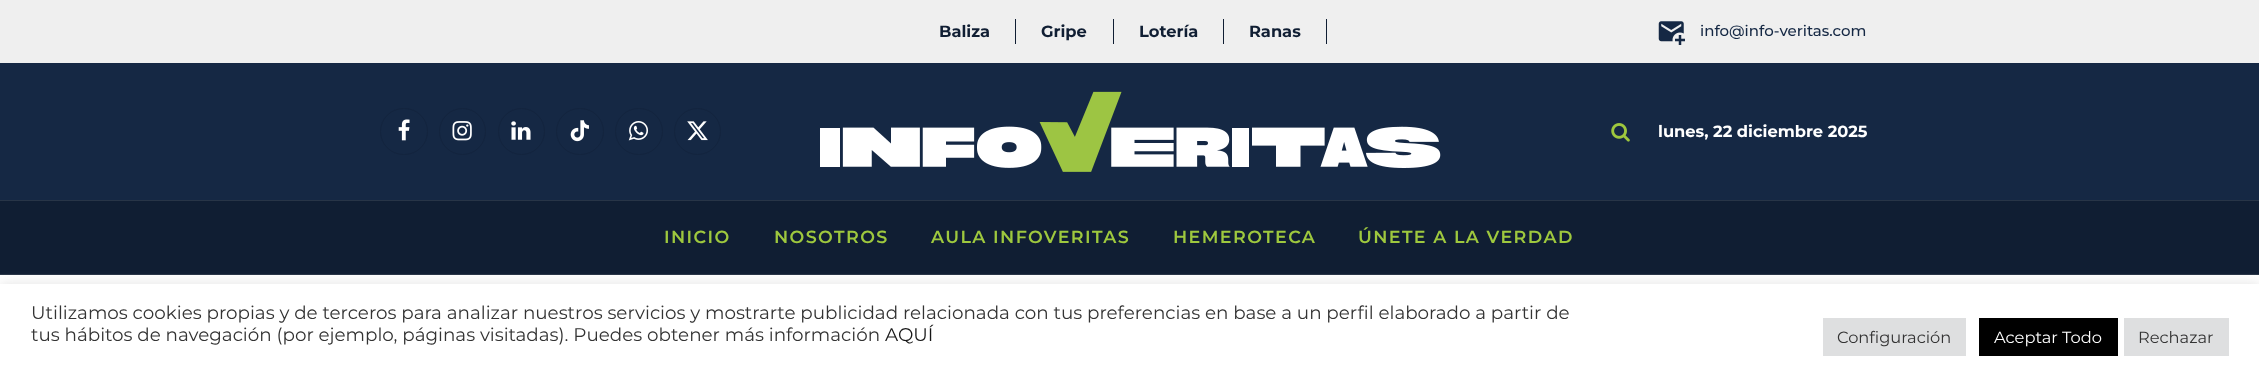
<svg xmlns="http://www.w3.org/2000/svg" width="2259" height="390">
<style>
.a{font:bold 16.25px Montserrat;fill:#101e33}
.b{font:500 15px Montserrat;fill:#152844}
.c{font:bold 16.25px Montserrat;fill:#fff}
.d{font:600 17.5px Montserrat;letter-spacing:1.4px;fill:#9ec83e}
.e{font:18.33px Montserrat;fill:#333}
.f{font:18.33px Montserrat;fill:#161616}
.g{font:16.25px Montserrat;fill:#333}
.h{font:16.25px Montserrat;fill:#fff}
</style>
<rect width="100%" height="100%" fill="#fff"/>
<path fill="#efefef" d="M0 0h2259v63H0z"/>
<path fill="#101e33" d="M1015 19h1v25H1015z"/>
<path fill="#101e33" d="M1113 19h1v25H1113z"/>
<path fill="#101e33" d="M1223 19h1v25H1223z"/>
<path fill="#101e33" d="M1326 19h1v25H1326z"/>
<image href="1.png" x="1658" y="21" width="27" height="24"/>
<path fill="#152844" d="M0 63h2259v137H0z"/>
<rect fill="none" stroke="#13243e" x="380.5" y="108.5" width="47" height="46" rx="23"/>
<image href="2.png" x="398" y="119" width="12" height="22"/>
<circle fill="none" stroke="#13243e" cx="462.5" cy="131.5" r="23"/>
<image href="3.png" x="452" y="121" width="20" height="20"/>
<circle fill="none" stroke="#13243e" cx="521.5" cy="131.5" r="23"/>
<image href="4.png" x="511" y="121" width="20" height="19"/>
<rect fill="none" stroke="#13243e" x="556.5" y="108.5" width="47" height="46" rx="23"/>
<image href="5.png" x="570" y="120" width="19" height="22"/>
<rect fill="none" stroke="#13243e" x="615.5" y="108.5" width="47" height="46" rx="23"/>
<image href="6.png" x="628" y="121" width="20" height="20"/>
<circle fill="none" stroke="#13243e" cx="697.5" cy="131.5" r="23"/>
<image href="7.png" x="687" y="121" width="21" height="20"/>
<image href="8.png" x="820" y="91" width="621" height="81"/>
<image href="9.png" x="1611" y="123" width="19" height="19"/>
<path fill="#101e33" d="M0 201h2259v73H0z"/>
<path fill="#283547" d="M0 200h2259v1H0z"/>
<path fill="#283547" d="M0 274h2259v1H0z"/>
<path fill="#acabab4d" filter="blur(6px)" d="M0 283h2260v106H0z"/>
<path fill="#fff" d="M0 284h2259v106H0z"/>
<path fill="#dedfe0" d="M1823 318h143v38H1823z"/>
<path fill="#000" d="M1979 318h139v38H1979z"/>
<path fill="#dedfe0" d="M2124 318h105v38H2124z"/>
<text class="a" x="939" y="37">Baliza</text>
<text class="a" x="1041" y="37">Gripe</text>
<text class="a" x="1139" y="37">Lotería</text>
<text class="a" x="1249" y="37">Ranas</text>
<text class="b" x="1700" y="36">info@info-veritas.com</text>
<text class="c" x="1658" y="137">lunes, 22 diciembre 2025</text>
<text class="d" x="664" y="243">INICIO</text>
<text class="d" x="774" y="243">NOSOTROS</text>
<text class="d" x="931" y="243">AULA INFOVERITAS</text>
<text class="d" x="1173" y="243">HEMEROTECA</text>
<text class="d" x="1358" y="243">ÚNETE A LA VERDAD</text>
<text class="e" x="31" y="319">Utilizamos cookies propias y de terceros para analizar nuestros servicios y mostrarte publicidad relacionada con tus preferencias en base a un perfil elaborado a partir de</text>
<text class="e" x="31" y="341">tus hábitos de navegación (por ejemplo, páginas visitadas). Puedes obtener más información</text>
<text class="f" x="885" y="341">AQUÍ</text>
<text class="g" x="1837" y="343">Configuración</text>
<text class="h" x="1994" y="343">Aceptar Todo</text>
<text class="g" x="2138" y="343">Rechazar</text>
</svg>
